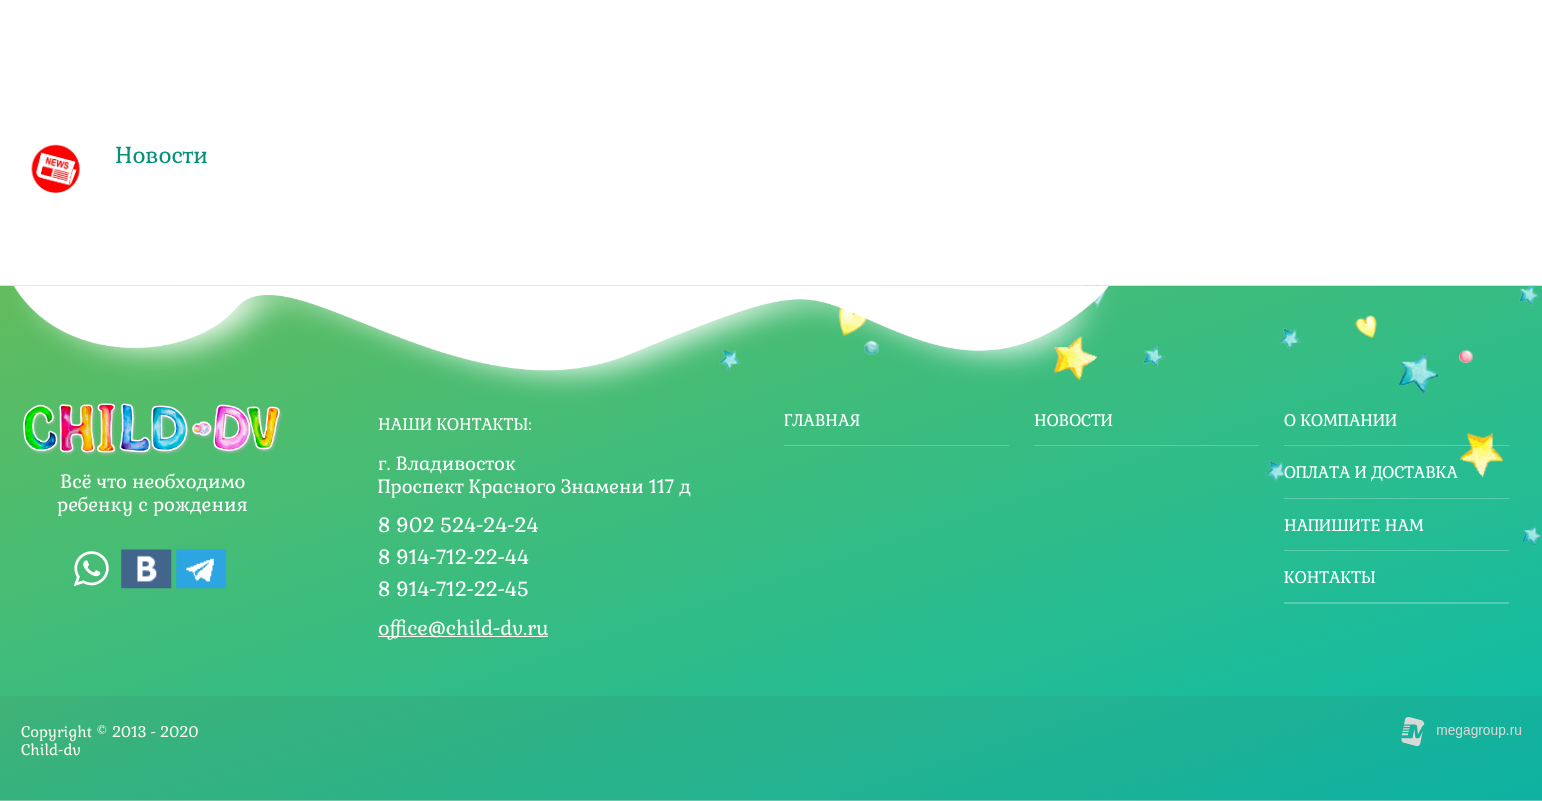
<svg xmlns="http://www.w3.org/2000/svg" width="1542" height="801">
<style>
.a{font:22.5px Gabriela;fill:#05917a}
.b{font:18.75px Gabriela;fill:#fff}
.c{font:16.25px Gabriela;fill:#fff}
.d{font:20px Gabriela;fill:#fff}
.e{font:20px Gabriela;fill:#fcf9f2}
.f{font:15px Gabriela;fill:#fcf9f2}
</style>
<rect width="100%" height="100%" fill="#fff"/>
<image href="1.png" x="31" y="144" width="49" height="49"/>
<image href="2.png" x="0" y="285" width="1542" height="516"/>
<image href="3.png" x="22" y="403" width="261" height="53"/>
<image href="4.png" x="74" y="551" width="35" height="35"/>
<image href="5.png" x="121" y="549" width="51" height="40"/>
<image href="6.png" x="176" y="549" width="51" height="40"/>
<path fill="#fffef7" d="M378 636h170v1H378z"/>
<path fill="#ffffff3d" d="M784 445v1h225v-38v37z"/>
<path fill="#ffffff3d" d="M1034 445v1h225v-38v37z"/>
<path fill="#ffffff3d" d="M1284 445v1h225v-38v37z"/>
<path fill="#ffffff3d" d="M1284 498v1h225v-39v38z"/>
<path fill="#ffffff3d" d="M1284 550v1h225v-38v37z"/>
<path fill="#ffffff3d" d="M1284 602v2h225v-39v37z"/>
<path fill="#47424114" d="M0 696h1542v105H0z"/>
<image href="7.png" x="1401" y="717" width="120" height="30"/>
<text class="a" x="115" y="163">Новости</text>
<text class="b" x="60" y="488">Всё что необходимо</text>
<text class="b" x="57" y="511">ребенку с рождения</text>
<text class="c" x="378" y="430">НАШИ КОНТАКТЫ:</text>
<text class="b" x="378" y="470">г. Владивосток</text>
<text class="b" x="378" y="493">Проспект Красного Знамени 117 д</text>
<text class="d" x="378" y="532">8 902 524-24-24</text>
<text class="d" x="378" y="564">8 914-712-22-44</text>
<text class="d" x="378" y="596">8 914-712-22-45</text>
<text class="e" x="378" y="635">office@child-dv.ru</text>
<text class="c" x="784" y="426">ГЛАВНАЯ</text>
<text class="c" x="1034" y="426">НОВОСТИ</text>
<text class="c" x="1284" y="426">О КОМПАНИИ</text>
<text class="c" x="1284" y="478">ОПЛАТА И ДОСТАВКА</text>
<text class="c" x="1284" y="531">НАПИШИТЕ НАМ</text>
<text class="c" x="1284" y="583">КОНТАКТЫ</text>
<text class="f" x="21" y="737">Copyright © 2013 - 2020</text>
<text class="f" x="21" y="755">Сhild-dv</text>
</svg>
